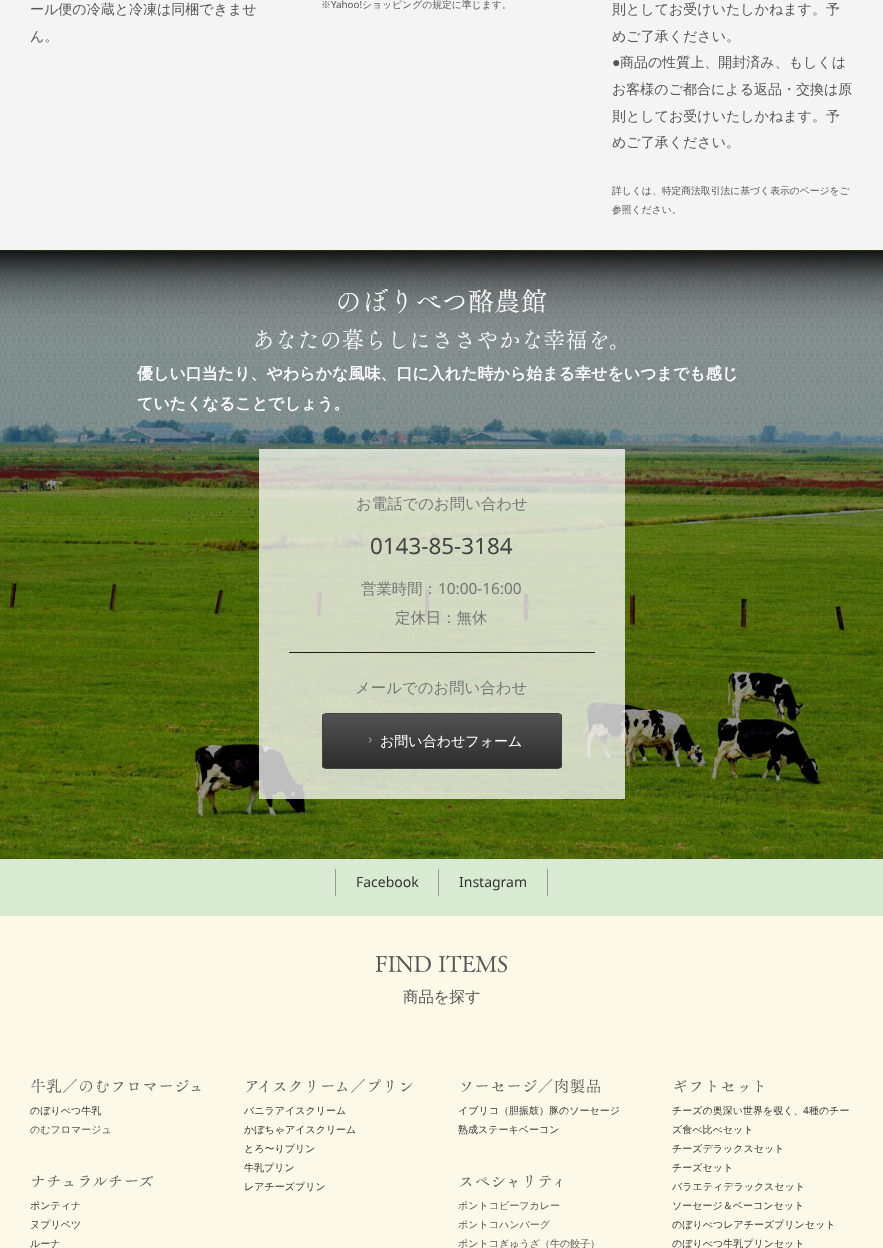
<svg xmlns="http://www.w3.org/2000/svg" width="883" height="1248">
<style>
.a{font:500 14px WenQuanYi Zen Hei;fill:#555}
.b{font:500 9.8px WenQuanYi Zen Hei;fill:#555}
.c{font:9.8px Noto Sans;fill:#555}
.d{font:14px Liberation Sans;fill:#555}
.e{font:26.5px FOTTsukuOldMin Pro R;fill:#fff}
.f{font:22.4px FOTTsukuOldMin Pro R;fill:#fff}
.g{font:bold 16px WenQuanYi Zen Hei;fill:#fff}
.h{font:500 15.4px WenQuanYi Zen Hei;fill:#767676}
.i{font:22.4px Noto Sans;fill:#434343}
.j{font:15.4px Noto Sans;fill:#767676}
.k{font:500 14px WenQuanYi Zen Hei;fill:#fff}
.l{font:14px Noto Sans;fill:#333}
.m{font:22.4px FOTTsukuOldMin Pro R;fill:#555}
.n{font:500 15.4px WenQuanYi Zen Hei;fill:#555}
.o{font:16px FOTTsukuOldMin Pro R;fill:#555}
.p{font:500 10px WenQuanYi Zen Hei;fill:#333}
.q{font:500 10px WenQuanYi Zen Hei;fill:#555}
.r{font:10px Noto Sans;fill:#333}
</style>
<defs>
<clipPath id="clip1"><rect x="322" y="713" width="240" height="56" rx="4"/></clipPath>
<linearGradient id="g1" gradientUnits="userSpaceOnUse" x1="442" y1="714" x2="442" y2="768"><stop offset="0" stop-color="#525252"/><stop offset="1" stop-color="#2c2c2c"/></linearGradient>
</defs>
<rect width="100%" height="100%" fill="#fcf9e9"/>
<path fill="#f4f4f4" d="M0 0h883v250H0z"/>
<image href="1.png" x="0" y="250" width="883" height="609"/>
<path fill="#ffffffbf" d="M259 449h366v350H259z"/>
<path fill="#1c1c1c" d="M289 652h306v1H289z"/>
<g clip-path="url(#clip1)">
<path fill="url(#g1)" d="M322 714h240v54H322z"/>
</g>
<rect fill="none" stroke="#434343" x="322.5" y="713.5" width="239" height="55" rx="3.5"/>
<image href="2.png" x="368" y="737" width="4" height="6"/>
<path fill="#d9ead3" d="M0 859h883v57H0z"/>
<path fill="#999" d="M438 869h1v27H438z"/>
<path fill="#999" d="M335 869h1v27H335z"/>
<path fill="#999" d="M547 869h1v27H547z"/>
<text class="a" x="30" y="14">ール便の冷蔵と冷凍は同梱できませ</text>
<text class="a" x="30" y="41">ん。</text>
<text class="b" x="321" y="8">※</text>
<text class="c" x="331" y="8">Yahoo!</text>
<text class="b" x="362" y="8">ショッピングの規定に準じます。</text>
<text class="a" x="612" y="14">則としてお受けいたしかねます。予</text>
<text class="a" x="612" y="41">めご了承ください。</text>
<text class="d" x="612" y="67">●</text>
<text class="a" x="620" y="67">商品の性質上、開封済み、もしくは</text>
<text class="a" x="612" y="94">お客様のご都合による返品・交換は原</text>
<text class="a" x="612" y="121">則としてお受けいたしかねます。予</text>
<text class="a" x="612" y="147">めご了承ください。</text>
<text class="b" x="612" y="194">詳しくは、特定商法取引法に基づく表示のページをご</text>
<text class="b" x="612" y="213">参照ください。</text>
<text class="e" x="335" y="311">のぼりべつ酪農館</text>
<text class="f" x="252" y="348">あなたの暮らしにささやかな幸福を。</text>
<text class="g" x="137" y="379">優しい口当たり、やわらかな風味、口に入れた時から始まる幸せをいつまでも感じ</text>
<text class="g" x="137" y="409">ていたくなることでしょう。</text>
<text class="h" x="356" y="509">お電話でのお問い合わせ</text>
<text class="i" x="370" y="554">0143-85-3184</text>
<text class="h" x="361" y="594">営業時間：</text>
<text class="j" x="438" y="594">10:00-16:00</text>
<text class="h" x="395" y="623">定休日：無休</text>
<text class="h" x="355" y="693">メールでのお問い合わせ</text>
<text class="k" x="380" y="746">お問い合わせフォーム</text>
<text class="l" x="356" y="887">Facebook</text>
<text class="l" x="459" y="887">Instagram</text>
<text class="m" x="375" y="972">FIND ITEMS</text>
<text class="n" x="403" y="1002">商品を探す</text>
<text class="o" x="30" y="1092">牛乳／のむフロマージュ</text>
<text class="p" x="30" y="1114">のぼりべつ牛乳</text>
<text class="q" x="30" y="1133">のむフロマージュ</text>
<text class="o" x="30" y="1187">ナチュラルチーズ</text>
<text class="p" x="30" y="1209">ポンティナ</text>
<text class="p" x="30" y="1228">ヌプリベツ</text>
<text class="p" x="30" y="1247">ルーナ</text>
<text class="o" x="244" y="1092">アイスクリーム／プリン</text>
<text class="p" x="244" y="1114">バニラアイスクリーム</text>
<text class="p" x="244" y="1133">かぼちゃアイスクリーム</text>
<text class="p" x="244" y="1152">とろ〜りプリン</text>
<text class="p" x="244" y="1171">牛乳プリン</text>
<text class="p" x="244" y="1190">レアチーズプリン</text>
<text class="o" x="458" y="1092">ソーセージ／肉製品</text>
<text class="p" x="458" y="1114">イブリコ（胆振鼓）豚のソーセージ</text>
<text class="p" x="458" y="1133">熟成ステーキベーコン</text>
<text class="o" x="458" y="1187">スペシャリティ</text>
<text class="q" x="458" y="1209">ポントコビーフカレー</text>
<text class="q" x="458" y="1228">ポントコハンバーグ</text>
<text class="q" x="458" y="1247">ポントコぎゅうざ（牛の餃子）</text>
<text class="o" x="672" y="1092">ギフトセット</text>
<text class="p" x="672" y="1114">チーズの奥深い世界を覗く、</text>
<text class="r" x="803" y="1114">4</text>
<text class="p" x="809" y="1114">種のチー</text>
<text class="p" x="672" y="1133">ズ食べ比べセット</text>
<text class="p" x="672" y="1152">チーズデラックスセット</text>
<text class="p" x="672" y="1171">チーズセット</text>
<text class="p" x="672" y="1190">バラエティデラックスセット</text>
<text class="p" x="672" y="1209">ソーセージ＆ベーコンセット</text>
<text class="p" x="672" y="1228">のぼりべつレアチーズプリンセット</text>
<text class="p" x="672" y="1247">のぼりべつ牛乳プリンセット</text>
</svg>
